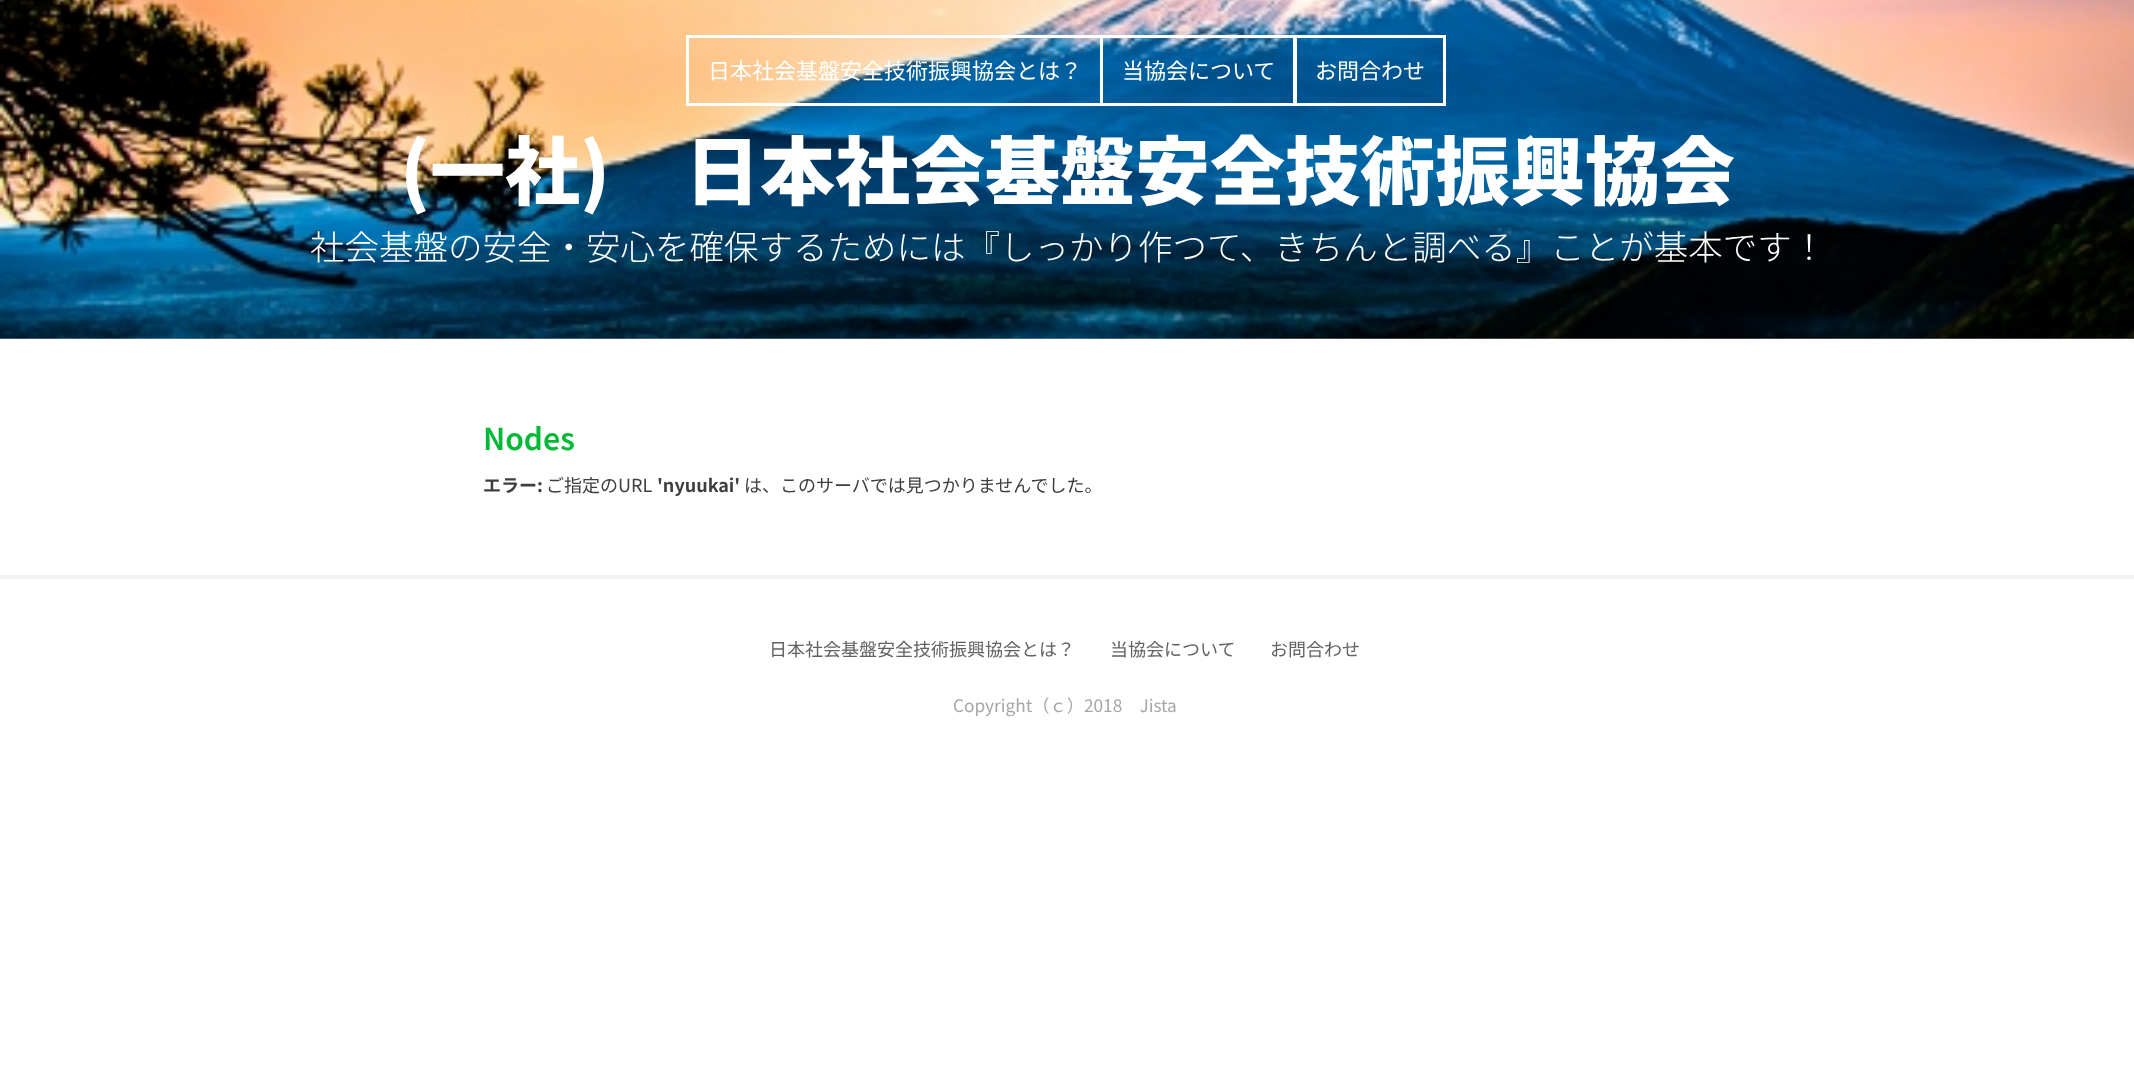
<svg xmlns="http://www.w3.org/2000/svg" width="2134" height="1067">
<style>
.a{font:22px Noto Sans JP;fill:#fff}
.b{font:900 75px Noto Sans JP;fill:#fff}
.c{font:300 34.5px Noto Sans JP;fill:#fff}
.d{font:600 30px Noto Sans JP;fill:#00b934}
.e{font:bold 18px Noto Sans JP;fill:#3e3e3e}
.f{font:18px Noto Sans JP;fill:#3e3e3e}
.g{font:18px Noto Sans JP;fill:#626262}
.h{font:17.25px Noto Sans JP;fill:#a6a6a6}
</style>
<rect width="100%" height="100%" fill="#fff"/>
<image href="1.png" x="0" y="0" width="2134" height="339"/>
<path fill="none" stroke="#fff" stroke-width="3" d="M687.5 36.5h414v68H687.5z"/>
<path fill="none" stroke="#fff" stroke-width="3" d="M1101.5 36.5h193v68H1101.5z"/>
<path fill="none" stroke="#fff" stroke-width="3" d="M1295.5 36.5h149v68H1295.5z"/>
<path fill="#f3f3f3" d="M0 575h2134v4H0z"/>
<text class="a" x="708" y="79">日本社会基盤安全技術振興協会とは？</text>
<text class="a" x="1122" y="79">当協会について</text>
<text class="a" x="1315" y="79">お問合わせ</text>
<text class="b" x="400" y="199">(一社)　日本社会基盤安全技術振興協会</text>
<text class="c" x="310" y="260">社会基盤の安全・安心を確保するためには『しっかり作つて、きちんと調べる』ことが基本です！</text>
<text class="d" x="483" y="450">Nodes</text>
<text class="e" x="483" y="492">エラー:</text>
<text class="f" x="546" y="492">ご指定のURL</text>
<text class="e" x="657" y="492">'nyuukai'</text>
<text class="f" x="744" y="492">は、このサーバでは見つかりませんでした。</text>
<text class="g" x="769" y="656">日本社会基盤安全技術振興協会とは？</text>
<text class="g" x="1110" y="656">当協会について</text>
<text class="g" x="1270" y="656">お問合わせ</text>
<text class="h" x="953" y="712">Copyright（ｃ）2018　Jista</text>
</svg>
